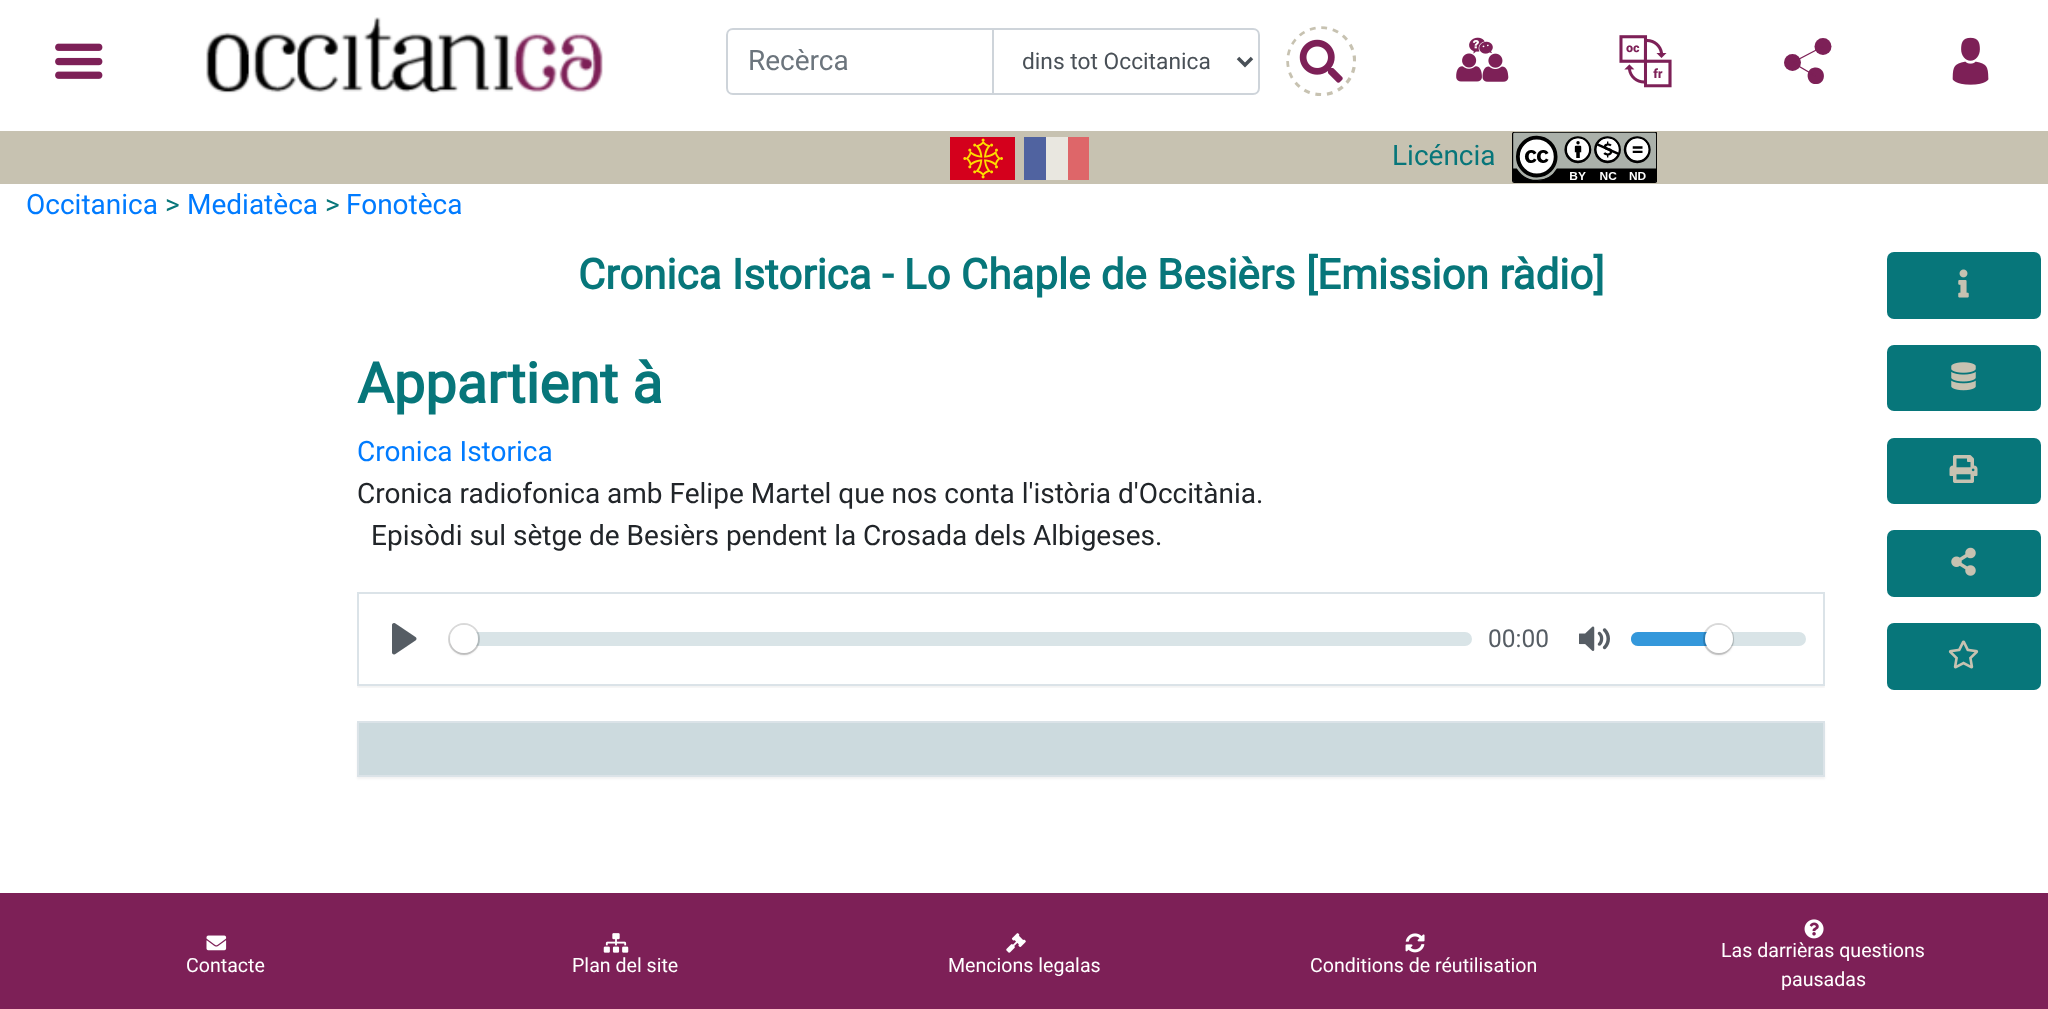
<svg xmlns="http://www.w3.org/2000/svg" width="2048" height="1009">
<style>
.a{font:28px Roboto;fill:#6c757d}
.b{font:22.75px Roboto;fill:#495057}
.c{font:28px Roboto;fill:#07767a}
.d{font:28px Roboto;fill:#007bff}
.e{font:bold 42px Roboto;fill:#07767a}
.f{font:bold 56px Roboto;fill:#07767a}
.g{font:28px Roboto;fill:#212529}
.h{font:24.5px Roboto;fill:#565d64}
.i{font:19.6px Roboto;fill:#fff}
</style>
<defs>
<clipPath id="clip1"><path d="M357 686h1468v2H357z"/></clipPath>
</defs>
<rect width="100%" height="100%" fill="#fff"/>
<image href="1.png" x="55" y="43" width="48" height="36"/>
<image href="2.png" x="206" y="17" width="397" height="77"/>
<path fill="none" stroke="#ced4da" stroke-width="2" d="M733 29h260v65h-260c-3.5 0-6-2.5-6-6v-53c0-3.5 2.5-6 6-6z"/>
<path fill="none" stroke="#ced4da" stroke-width="2" d="M993 29h260c3.5 0 6 2.5 6 6v53c0 3.5-2.5 6-6 6h-260z"/>
<path fill="none" stroke="#495057" stroke-width="3.5" d="M1238 58l7 7l7-7"/>
<image href="3.png" x="1286" y="26" width="70" height="70"/>
<image href="4.png" x="1456" y="37" width="53" height="45"/>
<image href="5.png" x="1619" y="35" width="53" height="53"/>
<circle fill="#7d2057" cx="1823" cy="46.5" r="8.5"/>
<circle fill="#7d2057" cx="1792.5" cy="62.5" r="8.5"/>
<path fill="#7d2057" d="M1814.5 67.5c11-1.5 13 15 2.5 16.5c-11 1.5-13-15-2.5-16.5z"/>
<path fill="none" stroke="#7d2057" stroke-width="1.3" d="M1823 46.5l-30.5 16l23 13.5"/>
<image href="6.png" x="1952" y="37" width="37" height="48"/>
<path fill="#c7c2b1" d="M0 131h2048v53H0z"/>
<image href="7.png" x="950" y="137" width="65" height="43"/>
<path fill="#de6669" d="M1068 137h21v43H1068z"/>
<path fill="#e9e7e0" d="M1046 137h22v43H1046z"/>
<path fill="#5063a0" d="M1024 137h22v43H1024z"/>
<image href="8.png" x="1512" y="132" width="145" height="51"/>
<g clip-path="url(#clip1)">
<path fill="#0000000d" filter="blur(1px)" d="M357 593h1468v95H357z"/>
</g>
<path fill="none" stroke="#dbe3e8" stroke-width="2" d="M358 593h1466v92H358z"/>
<image href="9.png" x="392" y="623" width="25" height="32"/>
<rect fill="#d9e4e7" x="450" y="632" width="1022" height="14" rx="7"/>
<circle fill="none" stroke="#00000026" stroke-width="2" cx="464" cy="639" r="15"/>
<rect fill="#00000026" filter="blur(1px)" x="450" y="627" width="28" height="28" rx="14"/>
<circle fill="#fff" cx="464" cy="639" r="14"/>
<image href="10.png" x="1579" y="626" width="31" height="25"/>
<rect fill="#d9e4e7" x="1631" y="632" width="175" height="14" rx="7"/>
<path fill="#3498db" d="M1638 632h81v14h-81c-4 0-7-3-7-7c0-4 3-7 7-7z"/>
<rect fill="none" stroke="#00000026" stroke-width="2" x="1704" y="624" width="29" height="30" rx="14.5"/>
<rect fill="#00000026" filter="blur(1px)" x="1705" y="627" width="28" height="28" rx="14"/>
<circle fill="#fff" cx="1719" cy="639" r="14"/>
<path fill="#0000000d" filter="blur(1px)" d="M357 723h1468v56H357z"/>
<path fill="#ccdade" stroke="#dbe3e8" stroke-width="2" d="M358 722h1466v54H358z"/>
<rect fill="#07767a" x="1887" y="252" width="154" height="67" rx="7"/>
<image href="11.png" x="1958" y="269" width="11" height="29"/>
<rect fill="#07767a" x="1887" y="345" width="154" height="66" rx="7"/>
<image href="12.png" x="1951" y="362" width="25" height="29"/>
<rect fill="#07767a" x="1887" y="438" width="154" height="66" rx="7"/>
<image href="13.png" x="1949" y="455" width="29" height="28"/>
<rect fill="#07767a" x="1887" y="530" width="154" height="67" rx="7"/>
<image href="14.png" x="1951" y="547" width="25" height="29"/>
<rect fill="#07767a" x="1887" y="623" width="154" height="67" rx="7"/>
<image href="15.png" x="1948" y="640" width="31" height="29"/>
<path fill="#7d2057" d="M0 893h2048v116H0z"/>
<image href="16.png" x="206" y="935" width="21" height="16"/>
<image href="17.png" x="603" y="933" width="26" height="20"/>
<image href="18.png" x="1006" y="933" width="20" height="20"/>
<image href="19.png" x="1405" y="933" width="20" height="20"/>
<image href="20.png" x="1804" y="919" width="20" height="20"/>
<text class="a" x="748" y="70">Recèrca</text>
<text class="b" x="1022" y="69">dins tot Occitanica</text>
<text class="c" x="1392" y="165">Licéncia</text>
<text class="d" x="26" y="214">Occitanica</text>
<text class="c" x="165" y="214">&gt;</text>
<text class="d" x="187" y="214">Mediatèca</text>
<text class="c" x="325" y="214">&gt;</text>
<text class="d" x="346" y="214">Fonotèca</text>
<text class="e" x="578" y="289">Cronica Istorica - Lo Chaple de Besièrs [Emission ràdio]</text>
<text class="f" x="357" y="403">Appartient à</text>
<text class="d" x="357" y="461">Cronica Istorica</text>
<text class="g" x="357" y="503">Cronica radiofonica amb Felipe Martel que nos conta l'istòria d'Occitània.</text>
<text class="g" x="371" y="545">Episòdi sul sètge de Besièrs pendent la Crosada dels Albigeses.</text>
<text class="h" x="1488" y="647">00:00</text>
<text class="i" x="186" y="972">Contacte</text>
<text class="i" x="572" y="972">Plan del site</text>
<text class="i" x="948" y="972">Mencions legalas</text>
<text class="i" x="1310" y="972">Conditions de réutilisation</text>
<text class="i" x="1721" y="957">Las darrièras questions</text>
<text class="i" x="1781" y="986">pausadas</text>
</svg>
